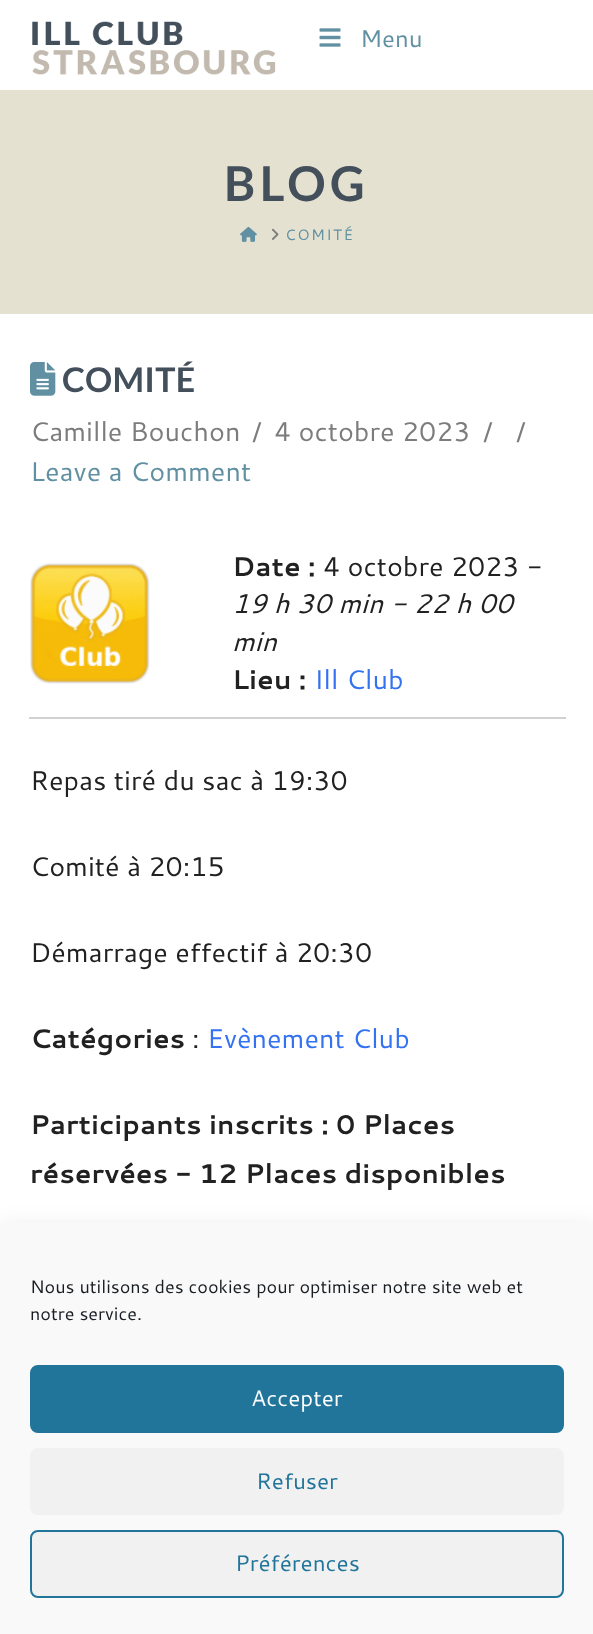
<svg xmlns="http://www.w3.org/2000/svg" width="593" height="1634">
<style>
.a{font:24px Cantarell;fill:#6190a2}
.b{font:bold 48px Lato;letter-spacing:4.5px;fill:#434f5b}
.c{font:15px Cantarell;letter-spacing:1.5px;fill:#6190a2}
.d{font:bold 34px Lato;letter-spacing:0.25px;fill:#434f5b}
.e{font:27px Cantarell;fill:#7c7c7c}
.f{font:27px Cantarell;fill:#6190a2}
.g{font:bold 27px Cantarell;fill:#212121}
.h{font:27px Cantarell;fill:#212121}
.i{font:italic 27px Cantarell;fill:#212121}
.j{font:27px Cantarell;fill:#3372f0}
.k{font:18px Cantarell;fill:#191e23}
.l{font:22.5px Cantarell;fill:#fff}
.m{font:22.5px Cantarell;fill:#21759b}
</style>
<rect width="100%" height="100%" fill="#fff"/>
<image href="1.png" x="32" y="21" width="244" height="54"/>
<image href="2.png" x="319" y="28" width="22" height="19"/>
<path fill="#e4e1d0" d="M0 90h593v224H0z"/>
<image href="3.png" x="240" y="226" width="17" height="16"/>
<image href="4.png" x="271" y="228" width="8" height="12"/>
<image href="5.png" x="30" y="362" width="26" height="34"/>
<image href="6.png" x="30" y="563" width="120" height="121"/>
<path fill="#d1d1d1" d="M29 717h537v2H29z"/>
<path fill="#00000030" filter="blur(15px)" d="M0 1236h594v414H0z"/>
<path fill="#f9f9f9" d="M0 1222h593v412H0z"/>
<rect fill="#21759b" stroke="#21759b" stroke-width="2" x="31" y="1366" width="532" height="66" rx="7"/>
<rect fill="#f1f1f1" x="30" y="1448" width="534" height="67" rx="8"/>
<rect fill="#f1f1f1" stroke="#21759b" stroke-width="2" x="31" y="1531" width="532" height="66" rx="7"/>
<text class="a" x="360" y="47">Menu</text>
<text class="b" x="224" y="201">BLOG</text>
<text class="c" x="285" y="240">COMITÉ</text>
<text class="d" x="62" y="392">COMITÉ</text>
<text class="e" x="30" y="441">Camille Bouchon</text>
<text class="e" x="252" y="441">/</text>
<text class="e" x="274" y="441">4 octobre 2023</text>
<text class="e" x="483" y="441">/</text>
<text class="e" x="516" y="441">/</text>
<text class="f" x="30" y="481">Leave a Comment</text>
<text class="g" x="232" y="576">Date :</text>
<text class="h" x="323" y="576">4 octobre 2023 -</text>
<text class="i" x="232" y="613">19 h 30 min - 22 h 00</text>
<text class="i" x="232" y="651">min</text>
<text class="g" x="232" y="689">Lieu :</text>
<text class="j" x="314" y="689">Ill Club</text>
<text class="h" x="30" y="790">Repas tiré du sac à 19:30</text>
<text class="h" x="30" y="876">Comité à 20:15</text>
<text class="h" x="30" y="962">Démarrage effectif à 20:30</text>
<text class="g" x="30" y="1048">Catégories</text>
<text class="h" x="192" y="1048">:</text>
<text class="j" x="207" y="1048">Evènement Club</text>
<text class="g" x="30" y="1134">Participants inscrits : 0 Places</text>
<text class="g" x="30" y="1183">réservées - 12 Places disponibles</text>
<text class="k" x="30" y="1293">Nous utilisons des cookies pour optimiser notre site web et</text>
<text class="k" x="30" y="1320">notre service.</text>
<text class="l" x="251" y="1406">Accepter</text>
<text class="m" x="256" y="1489">Refuser</text>
<text class="m" x="235" y="1571">Préférences</text>
</svg>
